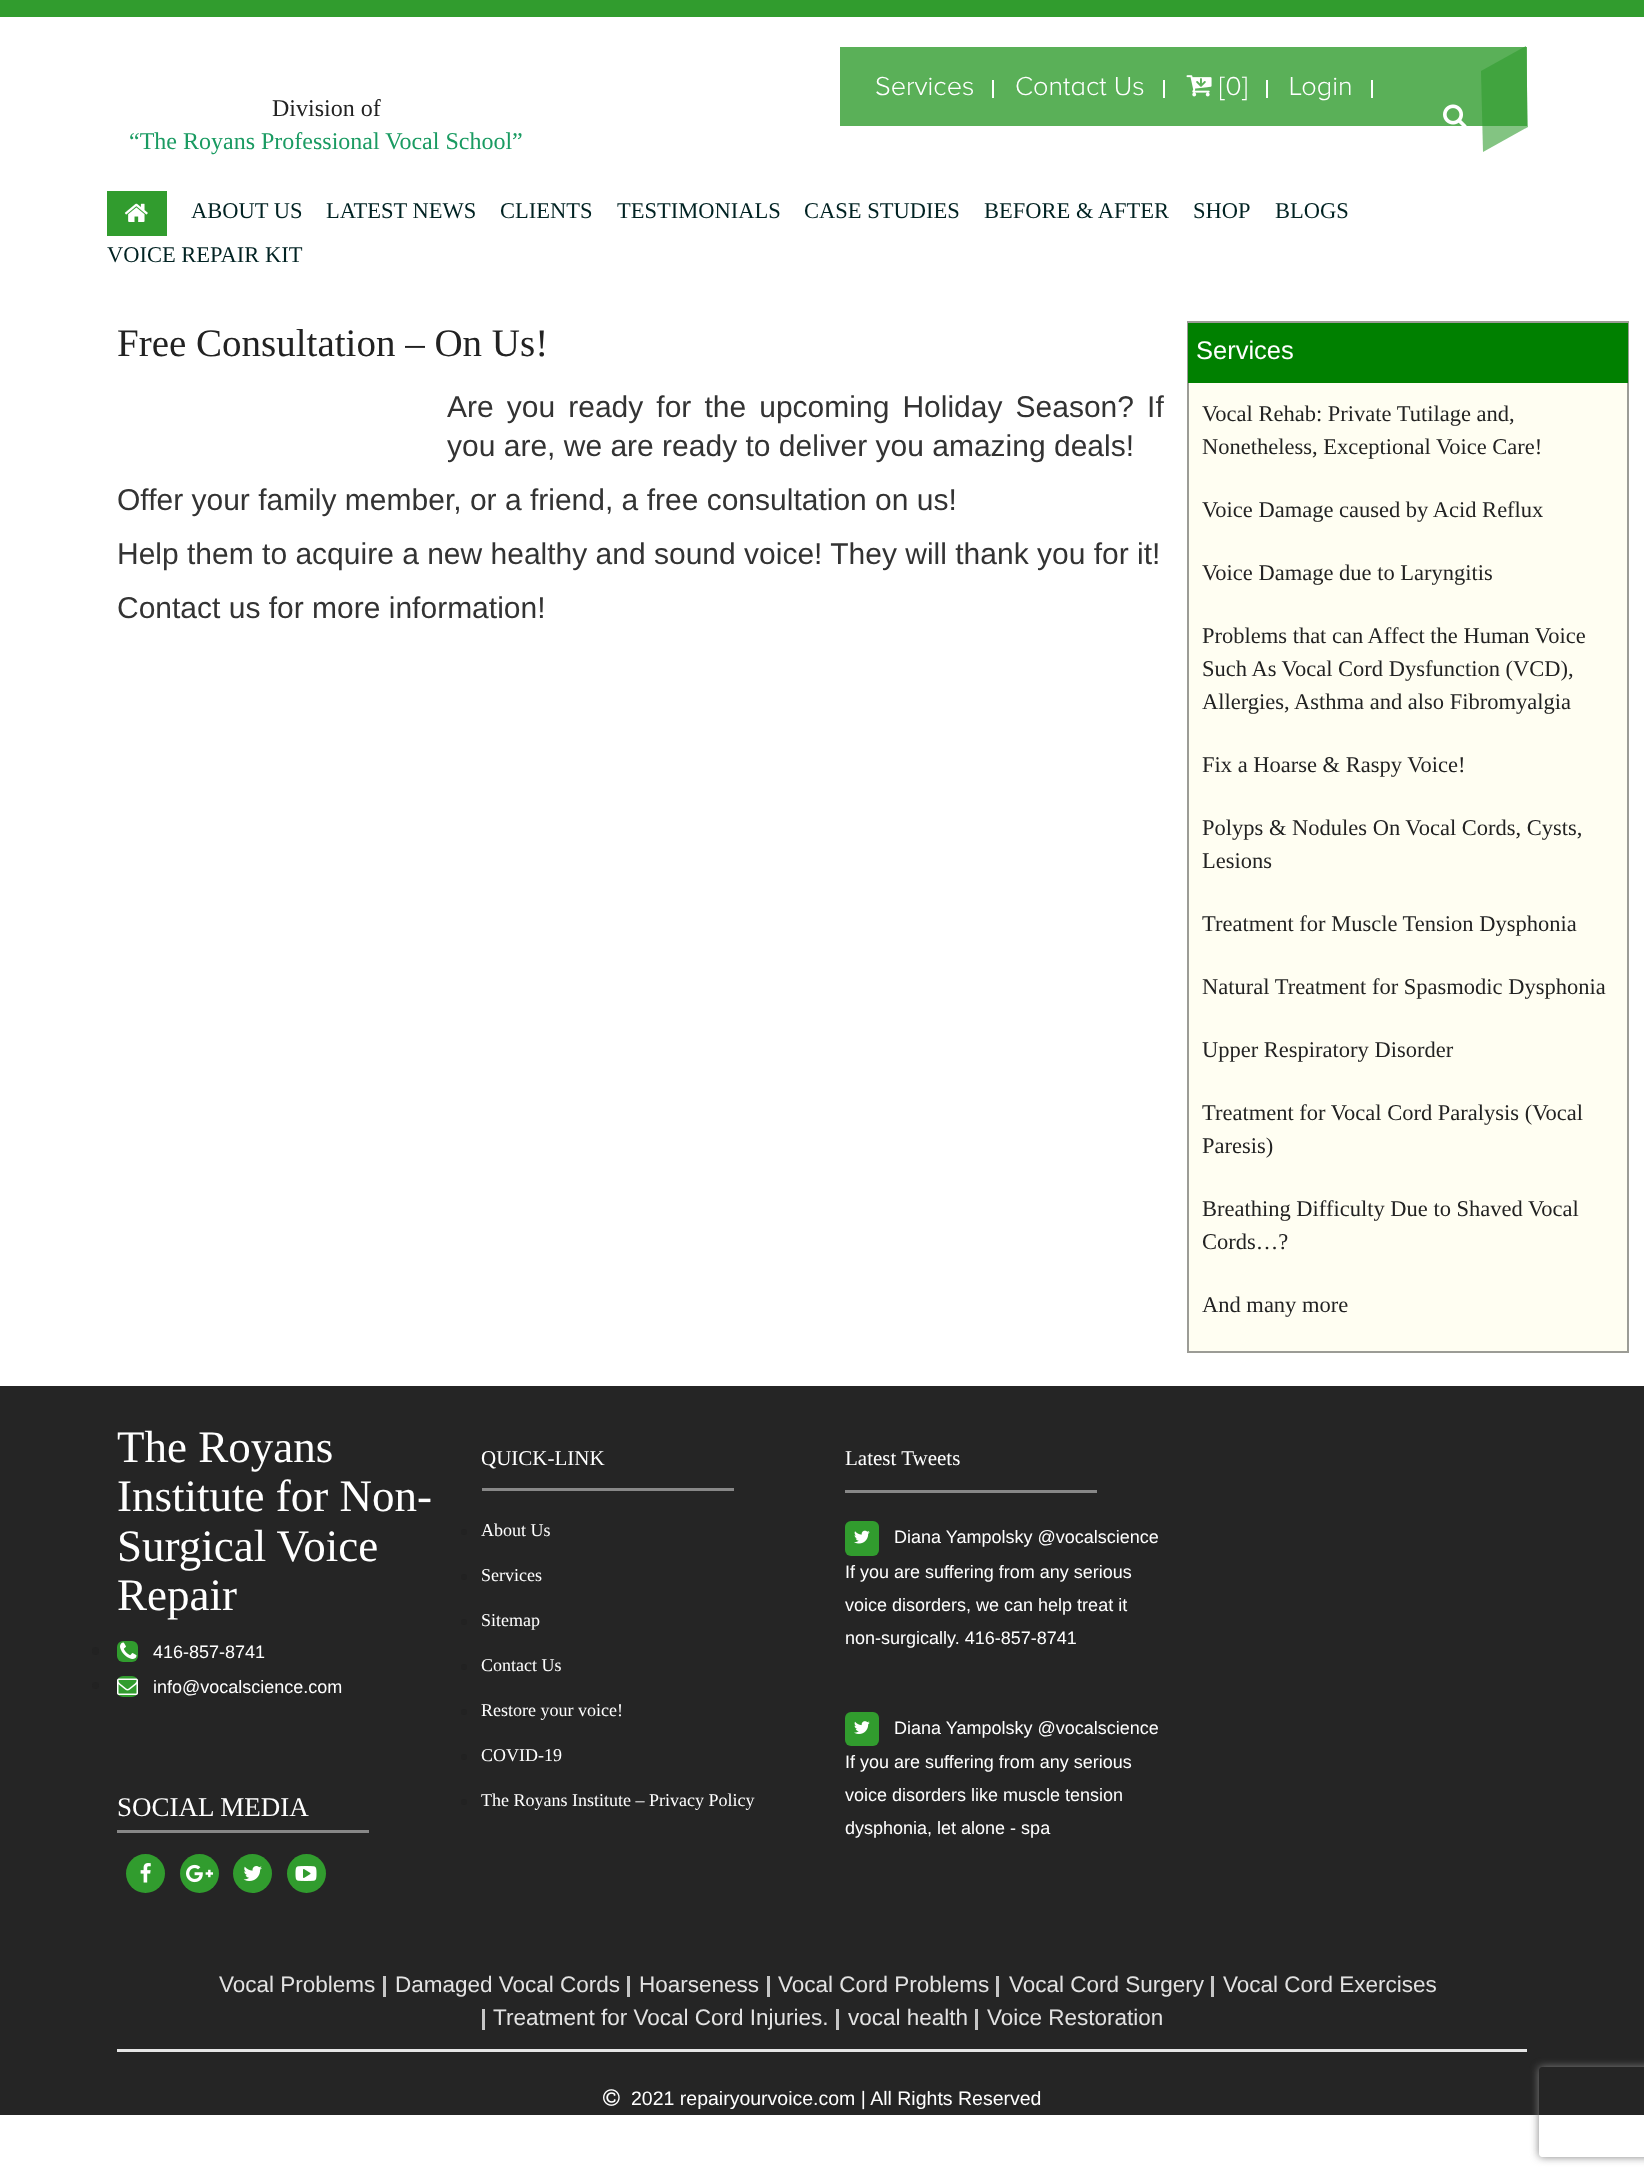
<svg xmlns="http://www.w3.org/2000/svg" width="1644" height="2178">
<style>
.a{font:300 27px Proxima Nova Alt;fill:#fff}
.b{font:24px Liberation Serif;fill:#222}
.c{font:24px Liberation Serif;fill:#1a9b62}
.d{font:22.5px Liberation Serif;fill:#022}
.e{font:39px Liberation Serif;fill:#222}
.f{font:30px Liberation Sans;fill:#333}
.g{font:25.5px Liberation Sans;fill:#fff}
.h{font:22.5px Liberation Serif;fill:#222}
.i{font:45px Liberation Serif;fill:#fff}
.j{font:18px Liberation Sans;fill:#fff}
.k{font:27px Liberation Serif;fill:#fff}
.l{font:21px Liberation Serif;fill:#fff}
.m{font:18px Liberation Serif;fill:#fff}
.n{font:22.5px Liberation Sans;fill:#e2e2e2}
.o{font:19.5px Liberation Sans;fill:#fff}
</style>
<defs>
<clipPath id="clip1"><path d="M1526 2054h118v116h-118zm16 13h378c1.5 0 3 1.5 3 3v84c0 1.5-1.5 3-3 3h-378c-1.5 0-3-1.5-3-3v-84c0-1.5 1.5-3 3-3z" clip-rule="evenodd"/></clipPath>
</defs>
<rect width="100%" height="100%" fill="#fff"/>
<path fill="#319c2e" d="M0 0h1644v17H0z"/>
<path fill="#5ab058" d="M840 47h687v79H840z"/>
<path fill="#fff" d="M992 80h2v18H992z"/>
<path fill="#fff" d="M1163 80h2v18H1163z"/>
<image href="1.png" x="1186" y="75" width="26" height="22"/>
<path fill="#fff" d="M1266 80h2v18H1266z"/>
<path fill="#fff" d="M1371 80h2v18H1371z"/>
<path fill="#319c2e99" d="M1481 71l45-25l2 81l-45 25z"/>
<image href="2.png" x="1443" y="104" width="24" height="22"/>
<path fill="#319c2e" d="M107 191h60v45H107z"/>
<image href="3.png" x="124" y="203" width="24" height="19"/>
<path fill="#fffef2" d="M1189 383h438v968H1189z"/>
<path fill="none" stroke="#9c9c96" stroke-width="2" d="M1188 322h440v1030H1188z"/>
<path fill="#008000" d="M1188 323h440v60H1188z"/>
<path fill="#252525" d="M0 1386h1644v729H0z"/>
<rect fill="#222" x="92" y="1647" width="7" height="8" rx="3.5"/>
<rect fill="#319c2e" x="117" y="1641" width="21" height="21" rx="6"/>
<image href="4.png" x="120" y="1642" width="17" height="17"/>
<circle fill="#222" cx="95.5" cy="1685.5" r="3.5"/>
<rect fill="#319c2e" x="117" y="1676" width="21" height="21" rx="6"/>
<image href="5.png" x="117" y="1678" width="21" height="17"/>
<path fill="#888" d="M117 1830h252v3H117z"/>
<circle fill="#319c2e" cx="145.5" cy="1873.5" r="19.5"/>
<image href="6.png" x="140" y="1863" width="11" height="20"/>
<circle fill="#319c2e" cx="199.5" cy="1873.5" r="19.5"/>
<image href="7.png" x="186" y="1864" width="27" height="19"/>
<circle fill="#319c2e" cx="252.5" cy="1873.5" r="19.5"/>
<image href="8.png" x="243" y="1866" width="19" height="15"/>
<circle fill="#319c2e" cx="306.5" cy="1873.5" r="19.5"/>
<image href="9.png" x="295" y="1866" width="22" height="15"/>
<path fill="#888" d="M482 1488h252v3H482z"/>
<circle fill="#222" cx="464" cy="1532" r="3"/>
<circle fill="#222" cx="464" cy="1577" r="3"/>
<circle fill="#222" cx="464" cy="1622" r="3"/>
<circle fill="#222" cx="464" cy="1667" r="3"/>
<circle fill="#222" cx="464" cy="1712" r="3"/>
<circle fill="#222" cx="464" cy="1757" r="3"/>
<circle fill="#222" cx="464" cy="1802" r="3"/>
<path fill="#888" d="M845 1490h252v3H845z"/>
<rect fill="#319c2e" x="845" y="1521" width="34" height="35" rx="6"/>
<image href="10.png" x="854" y="1530" width="16" height="14"/>
<rect fill="#319c2e" x="845" y="1712" width="34" height="34" rx="6"/>
<image href="11.png" x="854" y="1721" width="16" height="13"/>
<path fill="#e5e5e5" d="M117 2049h1410v3H117z"/>
<path fill="#c6c6c6" d="M383 1976h3v21H383z"/>
<path fill="#c6c6c6" d="M627 1976h3v21H627z"/>
<path fill="#c6c6c6" d="M767 1976h3v21H767z"/>
<path fill="#c6c6c6" d="M996 1976h3v21H996z"/>
<path fill="#c6c6c6" d="M1211 1976h3v21H1211z"/>
<path fill="#c6c6c6" d="M482 2009h3v21H482z"/>
<path fill="#c6c6c6" d="M836 2009h3v21H836z"/>
<path fill="#c6c6c6" d="M975 2009h3v21H975z"/>
<image href="12.png" x="603" y="2089" width="17" height="17"/>
<g clip-path="url(#clip1)">
<rect fill="#808080" filter="blur(4px)" x="1539" y="2067" width="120" height="90" rx="3"/>
</g>
<text class="a" x="875" y="95">Services</text>
<text class="a" x="1015" y="95">Contact Us</text>
<text class="a" x="1219" y="95">[0]</text>
<text class="a" x="1289" y="95">Login</text>
<text class="b" x="272" y="116">Division of</text>
<text class="c" x="129" y="149">“The Royans Professional Vocal School”</text>
<text class="d" x="191" y="218">ABOUT US</text>
<text class="d" x="326" y="218">LATEST NEWS</text>
<text class="d" x="500" y="218">CLIENTS</text>
<text class="d" x="617" y="218">TESTIMONIALS</text>
<text class="d" x="804" y="218">CASE STUDIES</text>
<text class="d" x="984" y="218">BEFORE &amp; AFTER</text>
<text class="d" x="1193" y="218">SHOP</text>
<text class="d" x="1275" y="218">BLOGS</text>
<text class="d" x="107" y="262">VOICE REPAIR KIT</text>
<text class="e" x="117" y="356">Free Consultation – On Us!</text>
<text class="f" x="447" y="417" word-spacing="4.75">Are you ready for the upcoming Holiday Season? If</text>
<text class="f" x="447" y="456">you are, we are ready to deliver you amazing deals!</text>
<text class="f" x="117" y="510">Offer your family member, or a friend, a free consultation on us!</text>
<text class="f" x="117" y="564">Help them to acquire a new healthy and sound voice! They will thank you for it!</text>
<text class="f" x="117" y="618">Contact us for more information!</text>
<text class="g" x="1196" y="359">Services</text>
<text class="h" x="1202" y="421">Vocal Rehab: Private Tutilage and,</text>
<text class="h" x="1202" y="454">Nonetheless, Exceptional Voice Care!</text>
<text class="h" x="1202" y="517">Voice Damage caused by Acid Reflux</text>
<text class="h" x="1202" y="580">Voice Damage due to Laryngitis</text>
<text class="h" x="1202" y="643">Problems that can Affect the Human Voice</text>
<text class="h" x="1202" y="676">Such As Vocal Cord Dysfunction (VCD),</text>
<text class="h" x="1202" y="709">Allergies, Asthma and also Fibromyalgia</text>
<text class="h" x="1202" y="772">Fix a Hoarse &amp; Raspy Voice!</text>
<text class="h" x="1202" y="835">Polyps &amp; Nodules On Vocal Cords, Cysts,</text>
<text class="h" x="1202" y="868">Lesions</text>
<text class="h" x="1202" y="931">Treatment for Muscle Tension Dysphonia</text>
<text class="h" x="1202" y="994">Natural Treatment for Spasmodic Dysphonia</text>
<text class="h" x="1202" y="1057">Upper Respiratory Disorder</text>
<text class="h" x="1202" y="1120">Treatment for Vocal Cord Paralysis (Vocal</text>
<text class="h" x="1202" y="1153">Paresis)</text>
<text class="h" x="1202" y="1216">Breathing Difficulty Due to Shaved Vocal</text>
<text class="h" x="1202" y="1249">Cords…?</text>
<text class="h" x="1202" y="1312">And many more</text>
<text class="i" x="117" y="1462">The Royans</text>
<text class="i" x="117" y="1511">Institute for Non-</text>
<text class="i" x="117" y="1561">Surgical Voice</text>
<text class="i" x="117" y="1610">Repair</text>
<text class="j" x="153" y="1658">416-857-8741</text>
<text class="j" x="153" y="1693">info@vocalscience.com</text>
<text class="k" x="117" y="1816">SOCIAL MEDIA</text>
<text class="l" x="481" y="1465">QUICK-LINK</text>
<text class="m" x="481" y="1536">About Us</text>
<text class="m" x="481" y="1581">Services</text>
<text class="m" x="481" y="1626">Sitemap</text>
<text class="m" x="481" y="1671">Contact Us</text>
<text class="m" x="481" y="1716">Restore your voice!</text>
<text class="m" x="481" y="1761">COVID-19</text>
<text class="m" x="481" y="1806">The Royans Institute – Privacy Policy</text>
<text class="l" x="845" y="1465">Latest Tweets</text>
<text class="j" x="894" y="1543">Diana Yampolsky @vocalscience</text>
<text class="j" x="845" y="1578">If you are suffering from any serious</text>
<text class="j" x="845" y="1611">voice disorders, we can help treat it</text>
<text class="j" x="845" y="1644">non-surgically. 416-857-8741</text>
<text class="j" x="894" y="1734">Diana Yampolsky @vocalscience</text>
<text class="j" x="845" y="1768">If you are suffering from any serious</text>
<text class="j" x="845" y="1801">voice disorders like muscle tension</text>
<text class="j" x="845" y="1834">dysphonia, let alone - spa</text>
<text class="n" x="219" y="1992">Vocal Problems</text>
<text class="n" x="395" y="1992">Damaged Vocal Cords</text>
<text class="n" x="639" y="1992">Hoarseness</text>
<text class="n" x="778" y="1992">Vocal Cord Problems</text>
<text class="n" x="1009" y="1992">Vocal Cord Surgery</text>
<text class="n" x="1223" y="1992">Vocal Cord Exercises</text>
<text class="n" x="493" y="2025">Treatment for Vocal Cord Injuries.</text>
<text class="n" x="848" y="2025">vocal health</text>
<text class="n" x="987" y="2025">Voice Restoration</text>
<text class="o" x="631" y="2105">2021 repairyourvoice.com | All Rights Reserved</text>
</svg>
